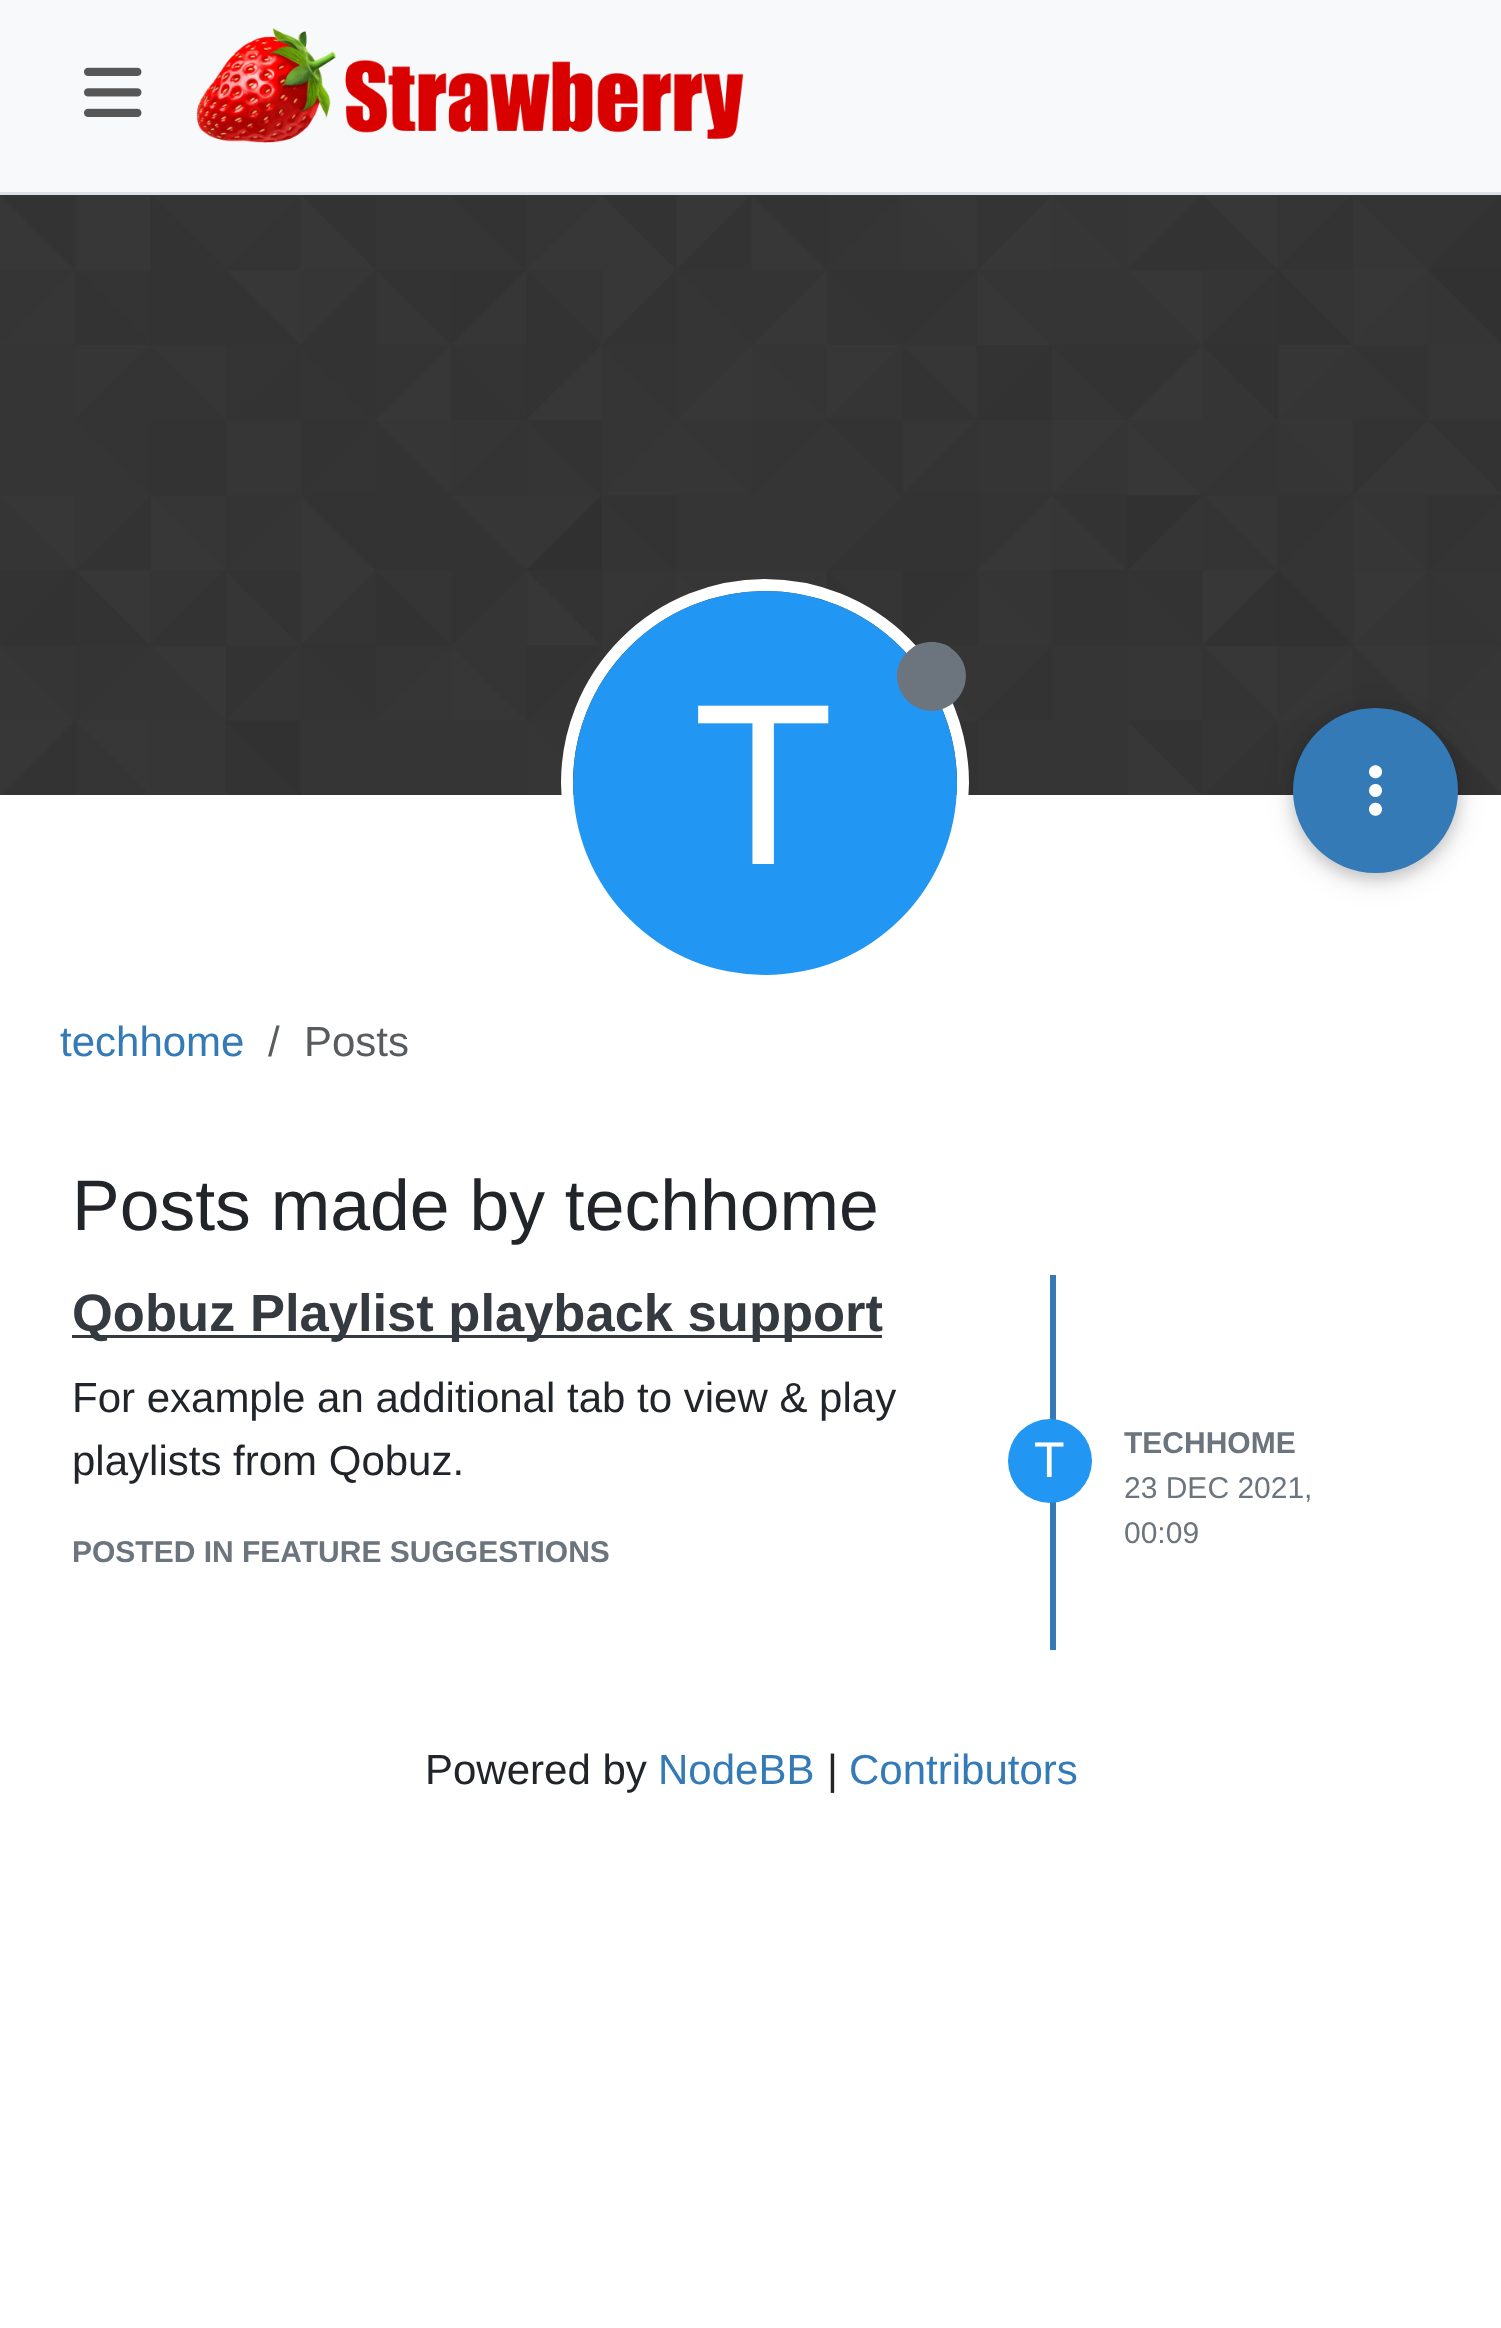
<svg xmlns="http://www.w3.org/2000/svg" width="1501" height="2328">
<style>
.a{font:230px Liberation Sans;fill:#fff}
.b{font:42px Liberation Sans;fill:#337ab7}
.c{font:42px Liberation Sans;fill:#595c5f}
.d{font:71.5px Liberation Sans;fill:#212529}
.e{font:bold 52.5px Liberation Sans;fill:#343a40}
.f{font:42px Liberation Sans;fill:#212529}
.g{font:50px Liberation Sans;fill:#fff}
.h{font:bold 30px Liberation Sans;fill:#6c757d}
.i{font:30px Liberation Sans;fill:#6c757d}
</style>
<rect width="100%" height="100%" fill="#fff"/>
<path fill="#f8f9fa" d="M0 0h1501v192H0z"/>
<path fill="#dee2e6" d="M0 192h1501v3H0z"/>
<image href="1.png" x="84" y="67" width="58" height="50"/>
<image href="2.png" x="196" y="28" width="548" height="115"/>
<image href="3.png" x="0" y="195" width="1501" height="600"/>
<circle fill="none" stroke="#fff" stroke-width="12" cx="765" cy="783" r="198"/>
<circle fill="#2196f3" cx="765" cy="783" r="192"/>
<path fill="#6c757d" d="M932 711c32-1 47-42 20-62c-5-5-13-7-20-7c-8 0-16 2-21 7c-27 20-12 61 21 62z"/>
<rect fill="#0000001f" filter="blur(15px)" x="1293" y="714" width="165" height="165" rx="82.5"/>
<rect fill="#00000029" filter="blur(7.5px)" x="1293" y="714" width="165" height="165" rx="82.5"/>
<circle fill="#337ab7" cx="1375.5" cy="790.5" r="82.5"/>
<image href="4.png" x="1368" y="765" width="15" height="51"/>
<path fill="#337ab7" d="M1050 1275h6v375H1050z"/>
<path fill="#343a40" d="M72 1335h810v3H72z"/>
<circle fill="#2196f3" cx="1050" cy="1461" r="42"/>
<text class="a" x="693" y="864">T</text>
<text class="b" x="60" y="1056">techhome</text>
<text class="c" x="268" y="1056">/</text>
<text class="c" x="304" y="1056">Posts</text>
<text class="d" x="72" y="1230">Posts made by techhome</text>
<text class="e" x="72" y="1331">Qobuz Playlist playback support</text>
<text class="f" x="72" y="1412">For example an additional tab to view &amp; play</text>
<text class="f" x="72" y="1475">playlists from Qobuz.</text>
<text class="g" x="1034" y="1477">T</text>
<text class="h" x="1124" y="1453">TECHHOME</text>
<text class="i" x="1124" y="1498">23 DEC 2021,</text>
<text class="i" x="1124" y="1543">00:09</text>
<text class="h" x="72" y="1562">POSTED IN FEATURE SUGGESTIONS</text>
<text class="f" x="425" y="1784">Powered by</text>
<text class="b" x="658" y="1784">NodeBB</text>
<text class="f" x="827" y="1784">|</text>
<text class="b" x="849" y="1784">Contributors</text>
</svg>
